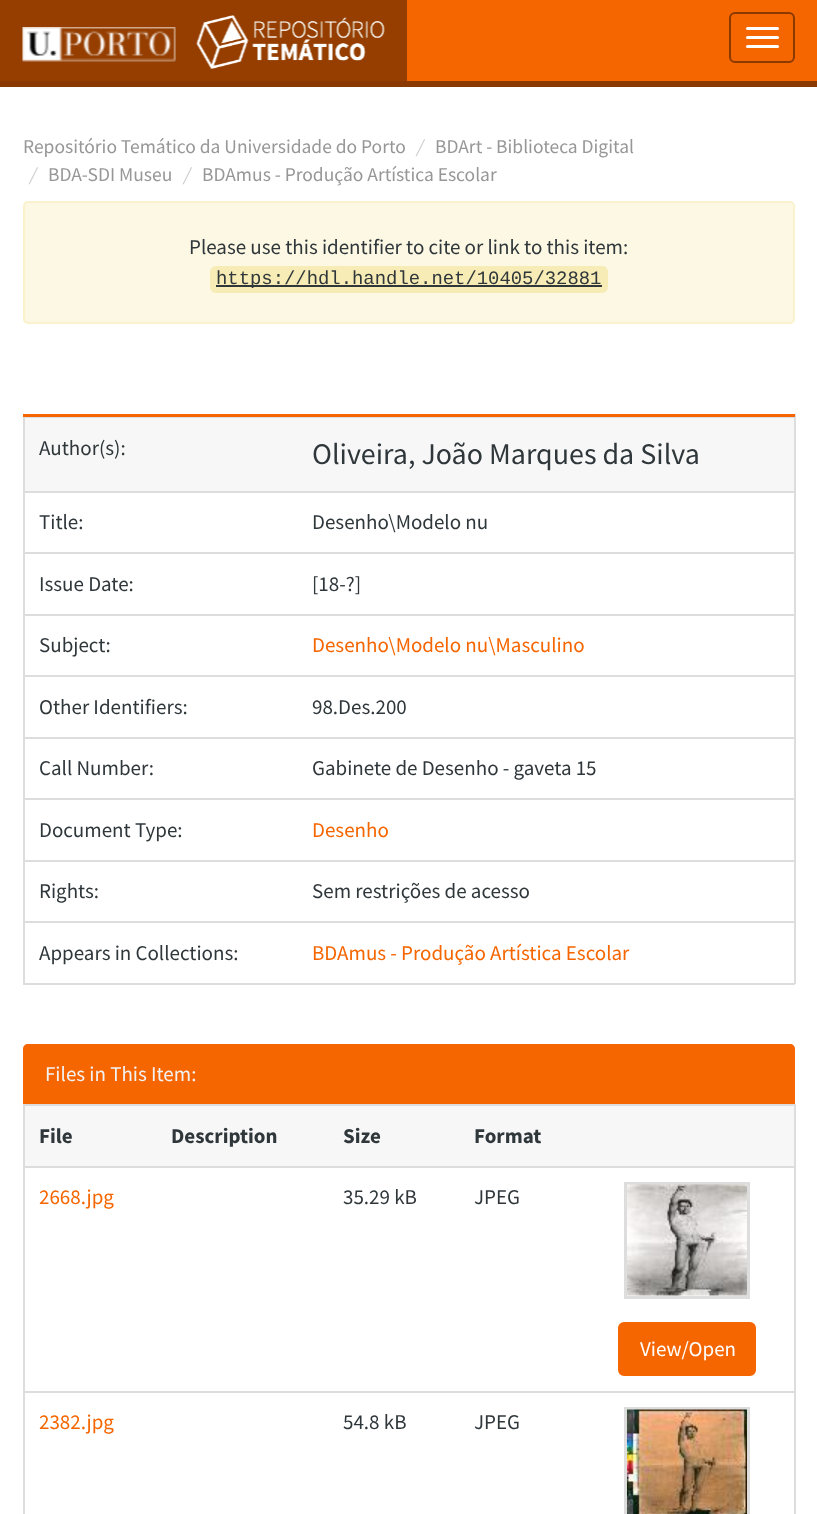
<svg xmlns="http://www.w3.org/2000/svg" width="817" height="1514">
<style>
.a{font:19.5px Source Sans Pro;fill:#979797}
.b{font:italic 19.5px Source Sans Pro;fill:#ccc}
.c{font:21px Source Sans Pro;fill:#2f373b}
.d{font:18.9px Liberation Mono;fill:#2f373b}
.e{font:30px Source Sans Pro;fill:#2f373b}
.f{font:21px Source Sans Pro;fill:#f56600}
.g{font:21px Source Sans Pro;fill:#f2f2f2}
.h{font:bold 21px Source Sans Pro;fill:#2f373b}
.i{font:21px Source Sans Pro;fill:#fff}
</style>
<rect width="100%" height="100%" fill="#fff"/>
<path fill="#f56600" d="M407 0h410v81H407z"/>
<path fill="#8a3900" d="M0 81h817v6H0z"/>
<path fill="#953e00" d="M0 0h407v81H0z"/>
<image href="1.png" x="22" y="27" width="154" height="35"/>
<image href="2.png" x="196" y="15" width="189" height="54"/>
<rect fill="none" stroke="#8a3900" stroke-width="2" x="730" y="13" width="64" height="49" rx="5"/>
<rect fill="#fff" x="746" y="27" width="33" height="3" rx="1.5"/>
<rect fill="#fff" x="746" y="36" width="33" height="3" rx="1.5"/>
<rect fill="#fff" x="746" y="45" width="33" height="3" rx="1.5"/>
<rect fill="#fcf8e3" stroke="#faf2cc" stroke-width="2" x="24" y="202" width="770" height="121" rx="4"/>
<rect fill="#f7ecb5" x="210" y="266" width="398" height="27" rx="6"/>
<path fill="#2f373b" d="M216 285h386v2H216z"/>
<path fill="#ddd" d="M794 414h2v570H794z"/>
<path fill="#ddd" d="M23 414h2v570H23z"/>
<path fill="#f56600" d="M23 414h772v3H23z"/>
<path fill="#ddd" d="M23 983h772v2H23z"/>
<path fill="#f7f7f7" d="M25 418h769v73H25z"/>
<path fill="#ddd" d="M23 417h772v1H23z"/>
<path fill="#ddd" d="M23 491h772v2H23z"/>
<path fill="#ddd" d="M23 552h772v2H23z"/>
<path fill="#ddd" d="M23 614h772v2H23z"/>
<path fill="#ddd" d="M23 675h772v2H23z"/>
<path fill="#ddd" d="M23 737h772v2H23z"/>
<path fill="#ddd" d="M23 798h772v2H23z"/>
<path fill="#ddd" d="M23 860h772v2H23z"/>
<path fill="#ddd" d="M23 921h772v2H23z"/>
<path fill="#f56600" d="M28 1044h762c3 0 5 2 5 5v55h-772v-55c0-3 2-5 5-5z"/>
<path fill="#ddd" d="M794 1104h2v410H794z"/>
<path fill="#ddd" d="M23 1104h2v410H23z"/>
<path fill="#f7f7f7" d="M25 1106h769v60H25z"/>
<path fill="#ddd" d="M23 1104h772v2H23z"/>
<path fill="#ddd" d="M23 1166h772v2H23z"/>
<path fill="none" stroke="#ddd" stroke-width="3" d="M625.5 1183.5h123v114H625.5z"/>
<image href="3.png" x="627" y="1184" width="120" height="112"/>
<rect fill="#f56600" stroke="#f56600" stroke-width="3" x="619.5" y="1323.5" width="135" height="51" rx="4.5"/>
<path fill="#ddd" d="M23 1391h772v2H23z"/>
<path fill="none" stroke="#ddd" stroke-width="3" d="M625.5 1408.5h123v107H625.5z"/>
<image href="4.png" x="627" y="1409" width="120" height="105"/>
<text class="a" x="23" y="153">Repositório Temático da Universidade do Porto</text>
<text class="b" x="417" y="153">/</text>
<text class="a" x="435" y="153">BDArt - Biblioteca Digital</text>
<text class="b" x="30" y="181">/</text>
<text class="a" x="48" y="181">BDA-SDI Museu</text>
<text class="b" x="184" y="181">/</text>
<text class="a" x="202" y="181">BDAmus - Produção Artística Escolar</text>
<text class="c" x="189" y="254">Please use this identifier to cite or link to this item:</text>
<text class="d" x="216" y="284">https://hdl.handle.net/10405/32881</text>
<text class="c" x="39" y="455">Author(s):</text>
<text class="e" x="312" y="464">Oliveira, João Marques da Silva</text>
<text class="c" x="39" y="529">Title:</text>
<text class="c" x="312" y="529">Desenho\Modelo nu</text>
<text class="c" x="39" y="591">Issue Date:</text>
<text class="c" x="312" y="591">[18-?]</text>
<text class="c" x="39" y="652">Subject:</text>
<text class="f" x="312" y="652">Desenho\Modelo nu\Masculino</text>
<text class="c" x="39" y="714">Other Identifiers:</text>
<text class="c" x="312" y="714">98.Des.200</text>
<text class="c" x="39" y="775">Call Number:</text>
<text class="c" x="312" y="775">Gabinete de Desenho - gaveta 15</text>
<text class="c" x="39" y="837">Document Type:</text>
<text class="f" x="312" y="837">Desenho</text>
<text class="c" x="39" y="898">Rights:</text>
<text class="c" x="312" y="898">Sem restrições de acesso</text>
<text class="c" x="39" y="960">Appears in Collections:</text>
<text class="f" x="312" y="960">BDAmus - Produção Artística Escolar</text>
<text class="g" x="45" y="1081">Files in This Item:</text>
<text class="h" x="39" y="1143">File</text>
<text class="h" x="171" y="1143">Description</text>
<text class="h" x="343" y="1143">Size</text>
<text class="h" x="474" y="1143">Format</text>
<text class="f" x="39" y="1204">2668.jpg</text>
<text class="c" x="343" y="1204">35.29 kB</text>
<text class="c" x="474" y="1204">JPEG</text>
<text class="i" x="640" y="1356">View/Open</text>
<text class="f" x="39" y="1429">2382.jpg</text>
<text class="c" x="343" y="1429">54.8 kB</text>
<text class="c" x="474" y="1429">JPEG</text>
</svg>
